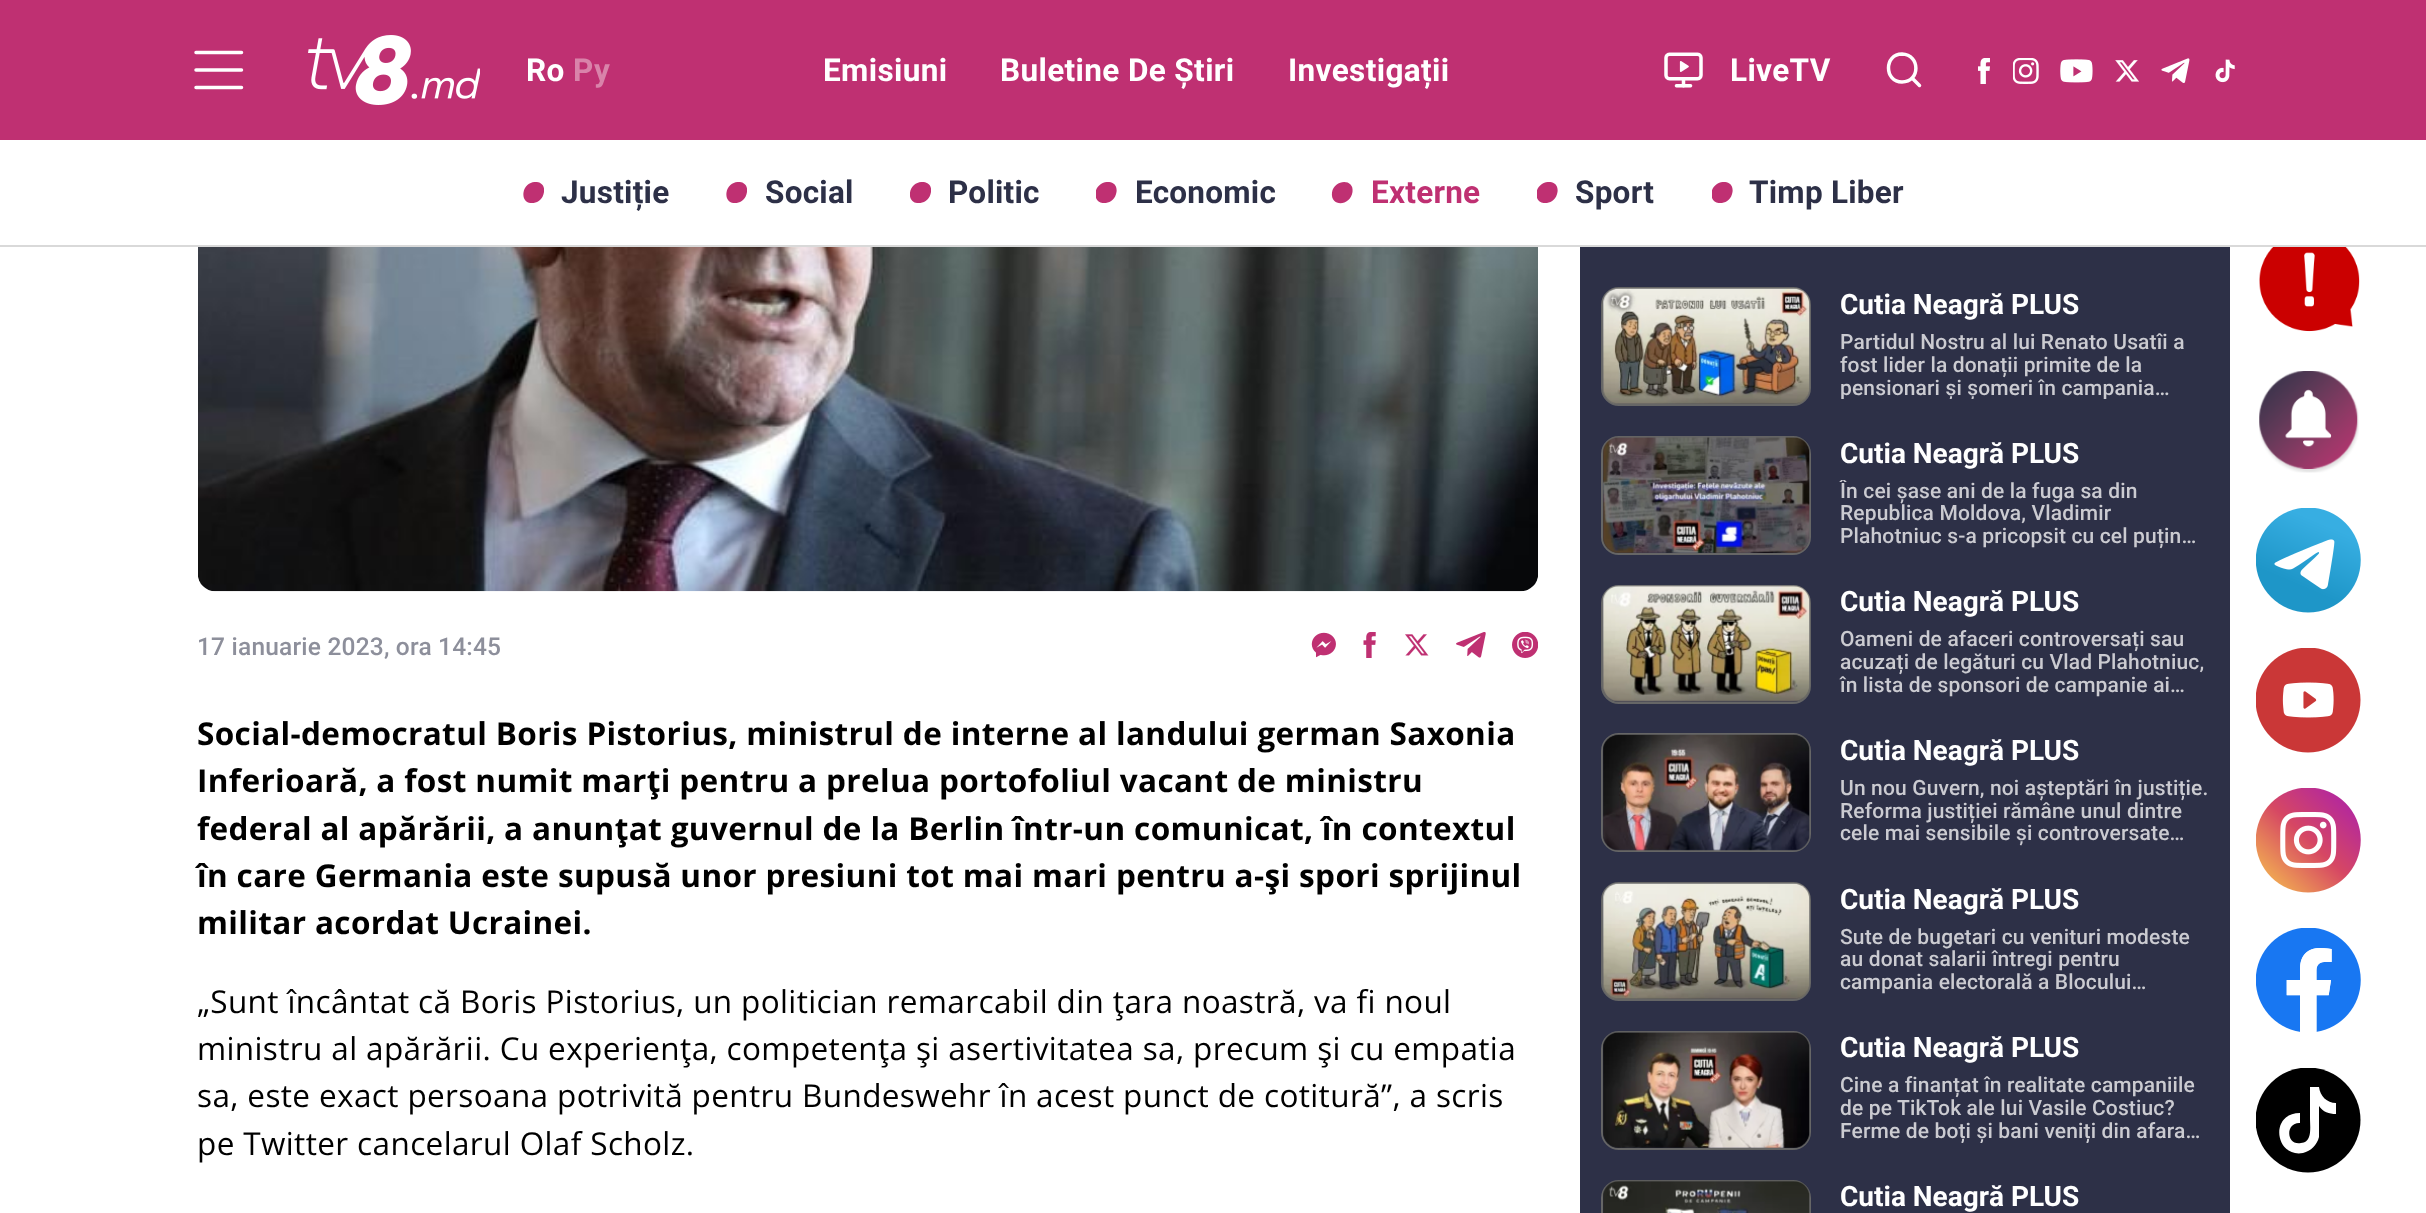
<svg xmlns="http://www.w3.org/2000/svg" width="2426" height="1213">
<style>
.a{font:bold 31.5px Roboto;letter-spacing:0.37px;fill:#fff}
.b{font:bold 31.5px Roboto;letter-spacing:0.37px;fill:#d983aa}
.c{font:bold 31.5px Roboto;letter-spacing:0.25px;fill:#2d3047}
.d{font:bold 31.5px Roboto;letter-spacing:0.25px;fill:#bf3072}
.e{font:500 24.5px Roboto;letter-spacing:0.2px;fill:#8d8f9b}
.f{font:bold 31.5px Open Sans;letter-spacing:0.37px;fill:#000}
.g{font:31.5px Open Sans;letter-spacing:0.37px;fill:#000}
.h{font:bold 28px Roboto;fill:#fff}
.i{font:500 21px Roboto;letter-spacing:0.15px;fill:#cbcbd1}
</style>
<defs>
<clipPath id="clip1"><path d="M523 182h21v21H523z"/></clipPath>
<clipPath id="clip2"><path d="M726 182h21v21H726z"/></clipPath>
<clipPath id="clip3"><path d="M910 182h21v21H910z"/></clipPath>
<clipPath id="clip4"><path d="M1096 182h21v21H1096z"/></clipPath>
<clipPath id="clip5"><path d="M1537 182h21v21H1537z"/></clipPath>
<clipPath id="clip6"><path d="M1712 182h21v21H1712z"/></clipPath>
<clipPath id="clip7"><path d="M2256 1068h105v105H2256z"/></clipPath>
<clipPath id="clip8"><path d="M1839 331h375v68H1839z"/></clipPath>
<clipPath id="clip9"><path d="M1839 480h375v68H1839z"/></clipPath>
<clipPath id="clip10"><path d="M1839 1075h375v68H1839z"/></clipPath>
</defs>
<rect width="100%" height="100%" fill="#fff"/>
<path fill="#d9d9d9" d="M0 245h2426v2H0z"/>
<path fill="#bf3072" d="M0 0h2426v140H0z"/>
<path fill="none" stroke="#fff" stroke-width="3.5" stroke-linecap="round" stroke-linejoin="round" d="M196 70h45.5m-45.5-17.5h45.5m-45.5 35h45.5"/>
<image href="1.png" x="308" y="35" width="172" height="70"/>
<image href="2.png" x="1664" y="52" width="39" height="36"/>
<path fill="none" stroke="#fff" stroke-width="3.5" stroke-linecap="round" stroke-linejoin="round" d="M1902 82c18.5 0 18.5-27.5 0-28c-18 0-18 28 0 28zm17.5 3.5l-7.5-7.5"/>
<image href="3.png" x="1978" y="58" width="12" height="26"/>
<image href="4.png" x="2013" y="58" width="26" height="26"/>
<image href="5.png" x="2060" y="59" width="33" height="24"/>
<image href="6.png" x="2115" y="60" width="24" height="22"/>
<image href="7.png" x="2161" y="58" width="29" height="25"/>
<image href="8.png" x="2215" y="59" width="20" height="24"/>
<g clip-path="url(#clip1)">
<path fill="#bf3072" d="M544 192c-2 14.5-22.5 15-20.5 .5c2-13.5 22.5-14.5 20.5-.5z"/>
</g>
<g clip-path="url(#clip2)">
<path fill="#bf3072" d="M747 192c-2 14.5-22.5 15-20.5 .5c2-13.5 22.5-14.5 20.5-.5z"/>
</g>
<g clip-path="url(#clip3)">
<path fill="#bf3072" d="M931 192c-2 14.5-23 15-21 .5c2-13.5 23-14.5 21-.5z"/>
</g>
<g clip-path="url(#clip4)">
<path fill="#bf3072" d="M1116.5 192c-2 14.5-23 15-21 .5c2-13.5 23-14.5 21-.5z"/>
</g>
<path fill="#bf3072" d="M1352.5 192c-2 14.5-22.5 15-20.5 .5c2-13.5 22.5-14.5 20.5-.5z"/>
<g clip-path="url(#clip5)">
<path fill="#bf3072" d="M1557.5 192c-2 14.5-23 15-21 .5c2-13.5 23-14.5 21-.5z"/>
</g>
<g clip-path="url(#clip6)">
<path fill="#bf3072" d="M1732.5 192c-2 14.5-23 15-21 .5c2-13.5 23-14.5 21-.5z"/>
</g>
<image href="9.png" x="198" y="247" width="1340" height="345"/>
<image href="10.png" x="1311" y="632" width="25" height="26"/>
<image href="11.png" x="1363" y="632" width="13" height="26"/>
<image href="12.png" x="1405" y="634" width="24" height="22"/>
<image href="13.png" x="1456" y="632" width="30" height="26"/>
<image href="14.png" x="1512" y="632" width="26" height="26"/>
<path fill="#2d3047" d="M1580 247h650v966H1580z"/>
<rect fill="none" stroke="#666" stroke-width="2" x="1602" y="288" width="208" height="117" rx="17"/>
<image href="15.png" x="1602" y="288" width="208" height="116"/>
<rect fill="none" stroke="#666" stroke-width="2" x="1602" y="437" width="208" height="117" rx="17"/>
<image href="16.png" x="1603" y="436" width="207" height="117"/>
<rect fill="none" stroke="#666" stroke-width="2" x="1602" y="586" width="208" height="117" rx="17"/>
<image href="17.png" x="1602" y="585" width="208" height="117"/>
<rect fill="none" stroke="#666" stroke-width="2" x="1602" y="734" width="208" height="117" rx="17"/>
<image href="18.png" x="1602" y="734" width="208" height="117"/>
<rect fill="none" stroke="#666" stroke-width="2" x="1602" y="883" width="208" height="117" rx="17"/>
<image href="19.png" x="1602" y="883" width="208" height="116"/>
<rect fill="none" stroke="#666" stroke-width="2" x="1602" y="1032" width="208" height="117" rx="17"/>
<image href="20.png" x="1602" y="1031" width="208" height="117"/>
<rect fill="none" stroke="#666" stroke-width="2" x="1602" y="1181" width="208" height="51" rx="17"/>
<image href="21.png" x="1603" y="1180" width="207" height="33"/>
<image href="22.png" x="2259" y="247" width="101" height="85"/>
<image href="23.png" x="2259" y="371" width="100" height="102"/>
<image href="24.png" x="2256" y="508" width="105" height="105"/>
<image href="25.png" x="2256" y="648" width="105" height="105"/>
<image href="26.png" x="2256" y="788" width="105" height="105"/>
<image href="27.png" x="2256" y="928" width="105" height="104"/>
<g clip-path="url(#clip7)">
<circle fill="#000" cx="2308" cy="1120" r="52.5"/>
</g>
<path fill="#fff" d="M2336 1114c-7 0-13-2-17-8v31c-2 8-8 14-16 16c-28 5-34-40-3-40v10c-15-1-14 23 1 20c4 0 7-3 8-6c2-5 1-14 1-19v-31h9c1 9 8 16 17 16v11"/>
<text class="a" x="526" y="81">Ro</text>
<text class="b" x="573" y="81">Ру</text>
<text class="a" x="823" y="81">Emisiuni</text>
<text class="a" x="1000" y="81">Buletine De Știri</text>
<text class="a" x="1288" y="81">Investigații</text>
<text class="a" x="1730" y="81">LiveTV</text>
<text class="c" x="561" y="203">Justiție</text>
<text class="c" x="765" y="203">Social</text>
<text class="c" x="948" y="203">Politic</text>
<text class="c" x="1135" y="203">Economic</text>
<text class="d" x="1371" y="203">Externe</text>
<text class="c" x="1575" y="203">Sport</text>
<text class="c" x="1749" y="203">Timp Liber</text>
<text class="e" x="197" y="655">17 ianuarie 2023, ora 14:45</text>
<text class="f" x="197" y="745">Social-democratul Boris Pistorius, ministrul de interne al landului german Saxonia</text>
<text class="f" x="197" y="792">Inferioară, a fost numit marţi pentru a prelua portofoliul vacant de ministru</text>
<text class="f" x="197" y="840">federal al apărării, a anunţat guvernul de la Berlin într-un comunicat, în contextul</text>
<text class="f" x="197" y="887">în care Germania este supusă unor presiuni tot mai mari pentru a-şi spori sprijinul</text>
<text class="f" x="197" y="934">militar acordat Ucrainei.</text>
<text class="g" x="197" y="1013">„Sunt încântat că Boris Pistorius, un politician remarcabil din ţara noastră, va fi noul</text>
<text class="g" x="197" y="1060">ministru al apărării. Cu experienţa, competenţa şi asertivitatea sa, precum şi cu empatia</text>
<text class="g" x="197" y="1107">sa, este exact persoana potrivită pentru Bundeswehr în acest punct de cotitură”, a scris</text>
<text class="g" x="197" y="1155">pe Twitter cancelarul Olaf Scholz.</text>
<text class="h" x="1840" y="314">Cutia Neagră PLUS</text>
<text class="i" x="1840" y="349">Partidul Nostru al lui Renato Usatîi a</text>
<text class="i" x="1840" y="372">fost lider la donații primite de la</text>
<g clip-path="url(#clip8)">
<text class="i" x="1840" y="395">pensionari și șomeri în campania…</text>
</g>
<text class="h" x="1840" y="463">Cutia Neagră PLUS</text>
<g clip-path="url(#clip9)">
<text class="i" x="1840" y="498">În cei șase ani de la fuga sa din</text>
</g>
<text class="i" x="1840" y="520">Republica Moldova, Vladimir</text>
<text class="i" x="1840" y="543">Plahotniuc s-a pricopsit cu cel puțin…</text>
<text class="h" x="1840" y="611">Cutia Neagră PLUS</text>
<text class="i" x="1840" y="646">Oameni de afaceri controversați sau</text>
<text class="i" x="1840" y="669">acuzați de legături cu Vlad Plahotniuc,</text>
<text class="i" x="1840" y="692">în lista de sponsori de campanie ai…</text>
<text class="h" x="1840" y="760">Cutia Neagră PLUS</text>
<text class="i" x="1840" y="795">Un nou Guvern, noi așteptări în justiție.</text>
<text class="i" x="1840" y="818">Reforma justiției rămâne unul dintre</text>
<text class="i" x="1840" y="840">cele mai sensibile și controversate…</text>
<text class="h" x="1840" y="909">Cutia Neagră PLUS</text>
<text class="i" x="1840" y="944">Sute de bugetari cu venituri modeste</text>
<text class="i" x="1840" y="966">au donat salarii întregi pentru</text>
<text class="i" x="1840" y="989">campania electorală a Blocului…</text>
<text class="h" x="1840" y="1057">Cutia Neagră PLUS</text>
<text class="i" x="1840" y="1092">Cine a finanțat în realitate campaniile</text>
<text class="i" x="1840" y="1115">de pe TikTok ale lui Vasile Costiuc?</text>
<g clip-path="url(#clip10)">
<text class="i" x="1840" y="1138">Ferme de boți și bani veniți din afara…</text>
</g>
<text class="h" x="1840" y="1206">Cutia Neagră PLUS</text>
</svg>
